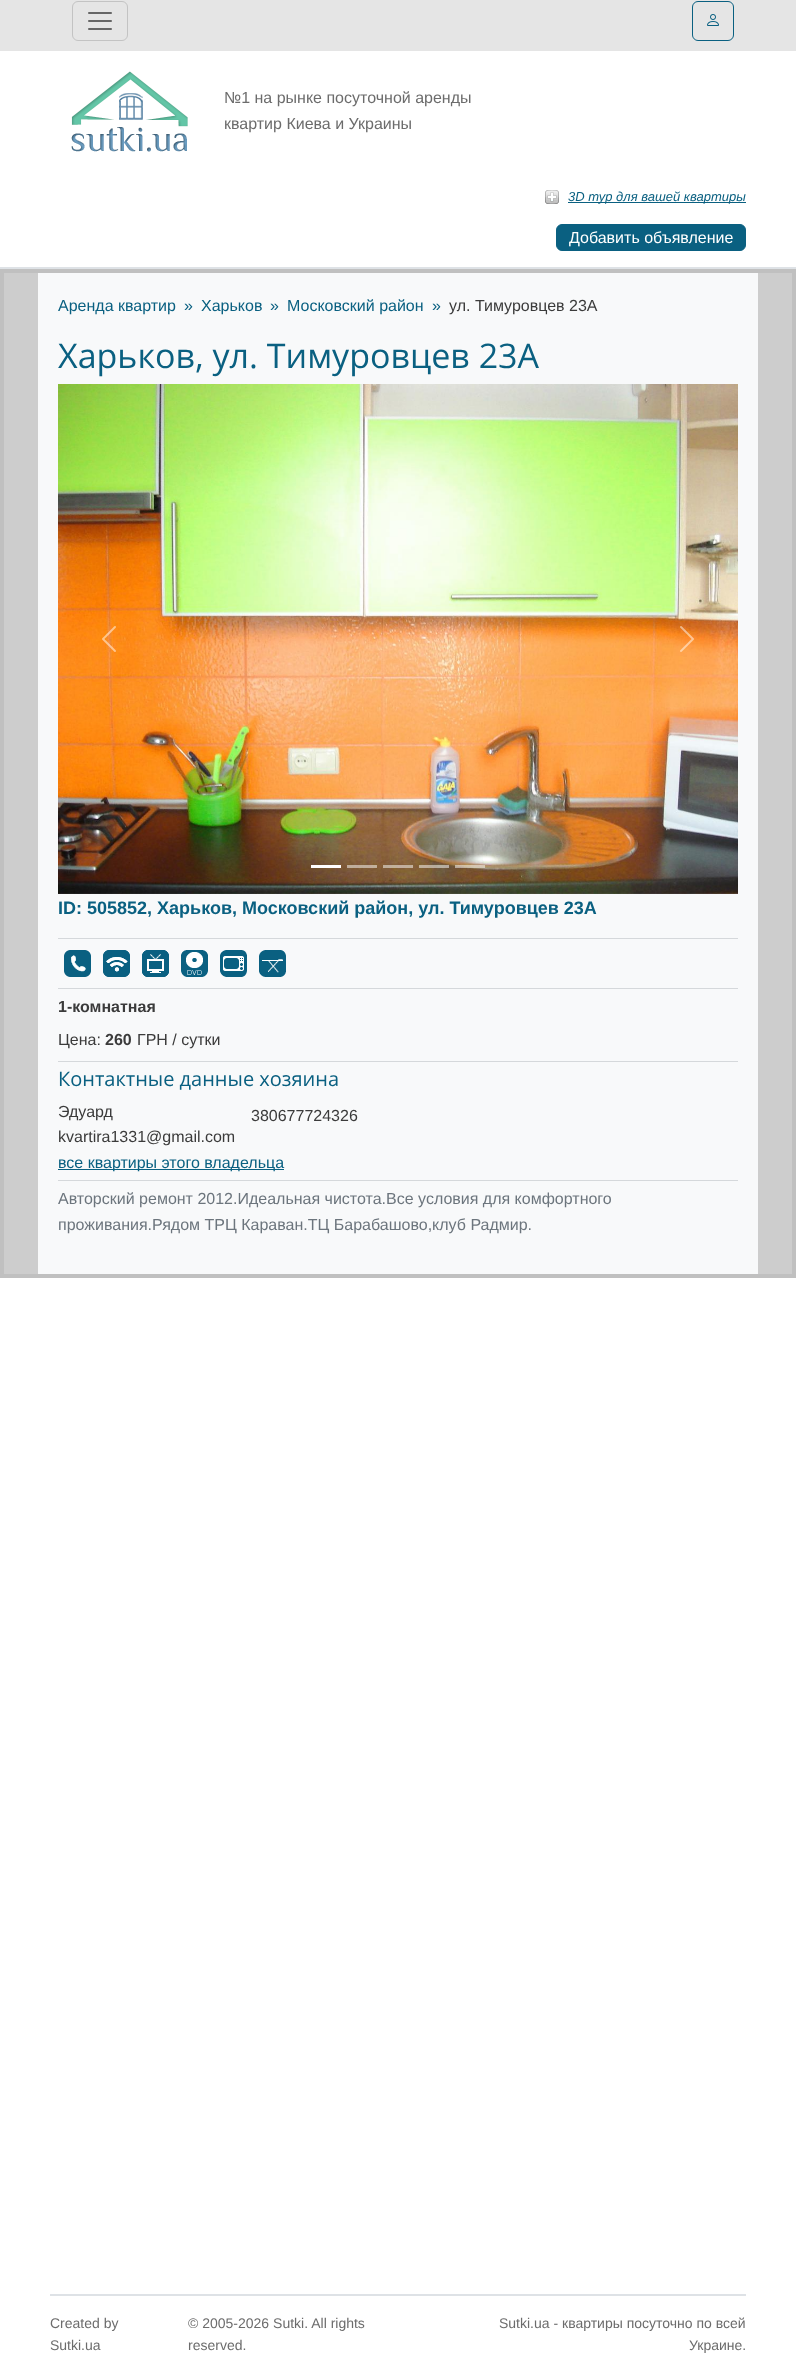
<svg xmlns="http://www.w3.org/2000/svg" width="796" height="2379">
<style>
.a{font:16px Liberation Sans;fill:#6c6c6c}
.b{font:italic 13px Liberation Sans;fill:#0a6081}
.c{font:16px Liberation Sans;fill:#fff}
.d{font:16px Liberation Sans;fill:#0a6081}
.e{font:16px Liberation Sans;fill:#3b3b3b}
.f{font:34px Open Sans;fill:#0a6081}
.g{font:bold 18px Liberation Sans;fill:#0a6081}
.h{font:bold 16px Liberation Sans;fill:#3b3b3b}
.i{font:20px Open Sans;fill:#0a6081}
.j{font:16px Liberation Sans;fill:#6c757d}
.k{font:14px Liberation Sans;fill:#6c6c6c}
</style>
<rect width="100%" height="100%" fill="#fff"/>
<path fill="#e5e5e5" d="M0 0h796v51H0z"/>
<rect fill="none" stroke="#c3c3c3" x="72.5" y="1.5" width="55" height="39" rx="5.5"/>
<image href="1.png" x="88" y="12" width="24" height="18"/>
<rect fill="none" stroke="#0a6081" x="692.5" y="1.5" width="41" height="39" rx="5.5"/>
<image href="2.png" x="707" y="14" width="12" height="12"/>
<path fill="#dee2e6" d="M0 267h796v2H0z"/>
<image href="3.png" x="71" y="71" width="117" height="81"/>
<image href="4.png" x="545" y="190" width="14" height="14"/>
<path fill="#0a6081" d="M568 202h178v1H568z"/>
<rect fill="#0a6081" stroke="#0a6081" x="556.5" y="224.5" width="189" height="26" rx="5.5"/>
<path fill="#cdcdcd" d="M4 273h788v1001H4z"/>
<path fill="none" stroke="#c0c0c0" stroke-width="2" d="M1 270h794v1007H1z"/>
<path fill="none" stroke="#c0c0c0" stroke-width="2" d="M3 272h790v1003H3z"/>
<path fill="#f8f9fa" d="M38 273h720v1001H38z"/>
<image href="5.png" x="58" y="384" width="680" height="510"/>
<image href="6.png" x="102" y="626" width="14" height="26"/>
<image href="7.png" x="680" y="626" width="14" height="26"/>
<path fill="#fff" d="M311 865h30v3H311z"/>
<path fill="#ffffff80" d="M347 865h30v3H347z"/>
<path fill="#ffffff80" d="M383 865h30v3H383z"/>
<path fill="#ffffff80" d="M419 865h30v3H419z"/>
<path fill="#ffffff80" d="M455 865h30v3H455z"/>
<path fill="#d5d8db" d="M58 938h680v1H58z"/>
<image href="8.png" x="64" y="950" width="27" height="27"/>
<image href="9.png" x="103" y="950" width="27" height="27"/>
<image href="10.png" x="142" y="950" width="27" height="27"/>
<image href="11.png" x="181" y="950" width="27" height="27"/>
<image href="12.png" x="220" y="950" width="27" height="27"/>
<image href="13.png" x="259" y="950" width="27" height="27"/>
<path fill="#d5d8db" d="M58 988h680v1H58z"/>
<path fill="#d5d8db" d="M58 1061h680v1H58z"/>
<path fill="#0a6081" d="M58 1169h226v1H58z"/>
<path fill="#d5d8db" d="M58 1180h680v1H58z"/>
<path fill="#dee2e6" d="M50 2294h696v2H50z"/>
<text class="a" x="224" y="103">№1 на рынке посуточной аренды</text>
<text class="a" x="224" y="129">квартир Киева и Украины</text>
<text class="b" x="568" y="201">3D тур для вашей квартиры</text>
<text class="c" x="569" y="243">Добавить объявление</text>
<text class="d" x="58" y="311">Аренда квартир</text>
<text class="d" x="184" y="311">»</text>
<text class="d" x="201" y="311">Харьков</text>
<text class="d" x="270" y="311">»</text>
<text class="d" x="287" y="311">Московский район</text>
<text class="d" x="432" y="311">»</text>
<text class="e" x="449" y="311">ул. Тимуровцев 23А</text>
<text class="f" x="58" y="368">Харьков, ул. Тимуровцев 23А</text>
<text class="g" x="58" y="914">ID: 505852, Харьков, Московский район, ул. Тимуровцев 23А</text>
<text class="h" x="58" y="1012">1-комнатная</text>
<text class="e" x="58" y="1045">Цена:</text>
<text class="h" x="105" y="1045">260</text>
<text class="e" x="137" y="1045">ГРН / сутки</text>
<text class="i" x="58" y="1086">Контактные данные хозяина</text>
<text class="e" x="58" y="1117">Эдуард</text>
<text class="e" x="58" y="1142">kvartira1331@gmail.com</text>
<text class="e" x="251" y="1121">380677724326</text>
<text class="d" x="58" y="1168">все квартиры этого владельца</text>
<text class="j" x="58" y="1204">Авторский ремонт 2012.Идеальная чистота.Все условия для комфортного</text>
<text class="j" x="58" y="1230">проживания.Рядом ТРЦ Караван.ТЦ Барабашово,клуб Радмир.</text>
<text class="k" x="50" y="2328">Created by</text>
<text class="k" x="50" y="2350">Sutki.ua</text>
<text class="k" x="188" y="2328">© 2005-2026 Sutki. All rights</text>
<text class="k" x="188" y="2350">reserved.</text>
<text class="k" x="499" y="2328">Sutki.ua - квартиры посуточно по всей</text>
<text class="k" x="689" y="2350">Украине.</text>
</svg>
